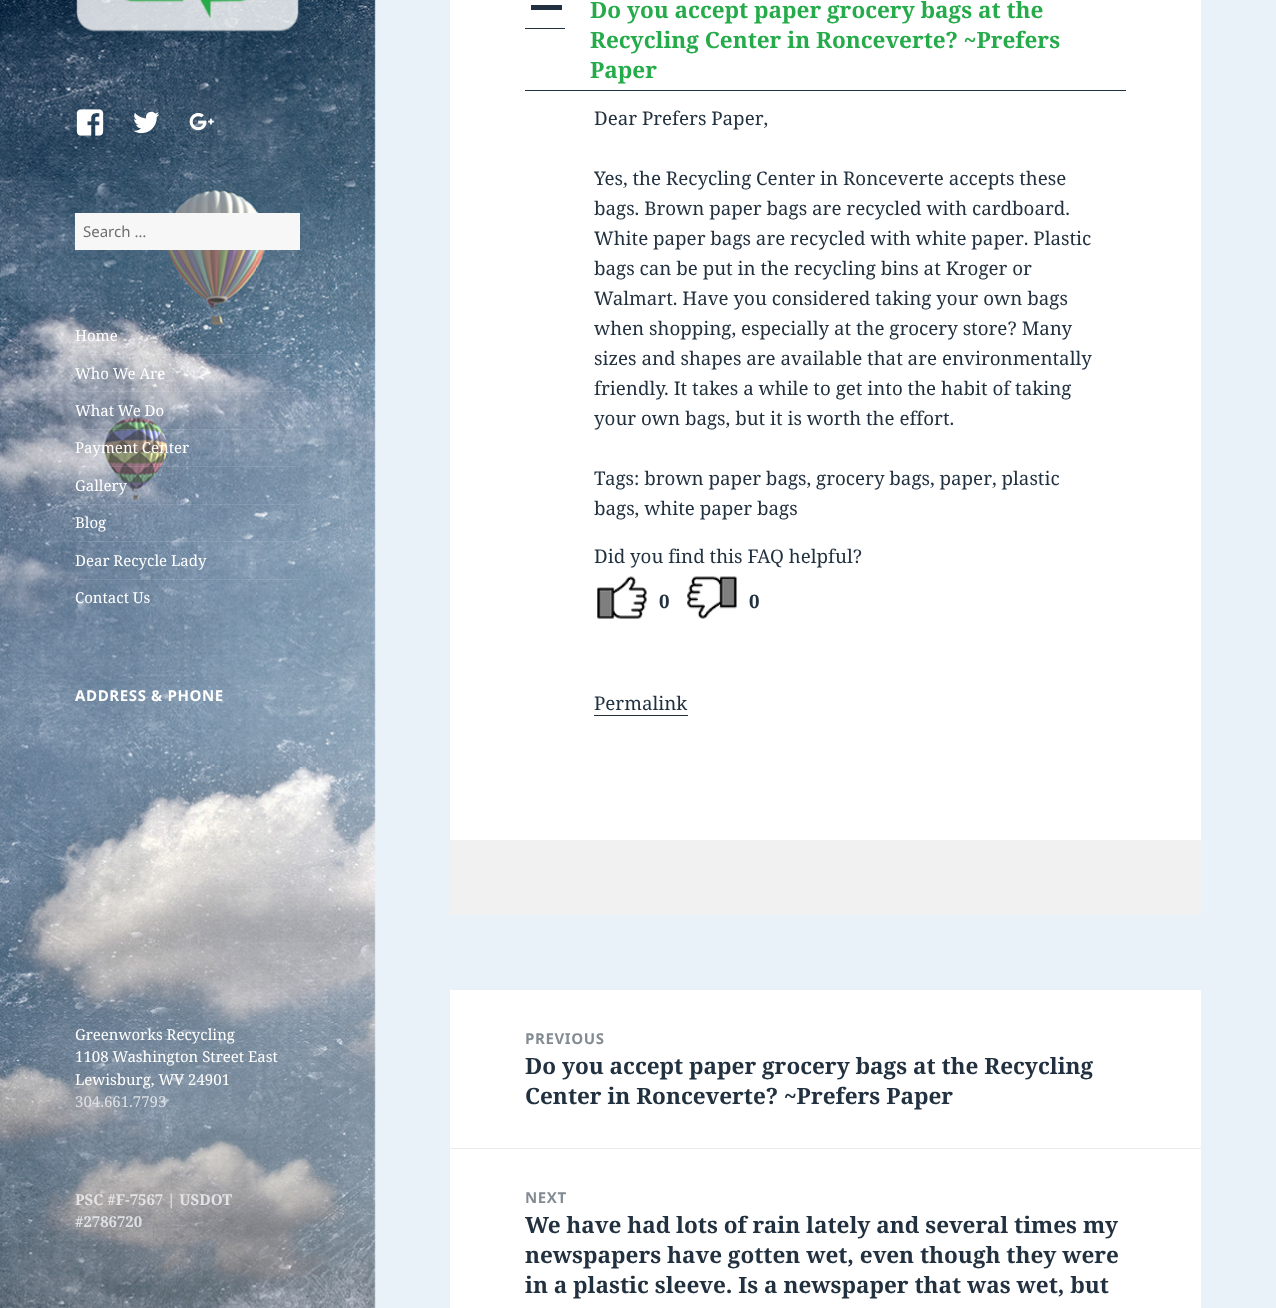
<svg xmlns="http://www.w3.org/2000/svg" width="1276" height="1308">
<style>
.a{font:15px Noto Sans;fill:#6e6e6e}
.b{font:15px Noto Serif;fill:#fff}
.c{font:bold 15px Noto Sans;letter-spacing:0.6px;fill:#fff}
.d{font:15px Noto Serif;fill:#dde0e4}
.e{font:bold 15px Noto Serif;fill:#e4e3e4}
.f{font:bold 15px Noto Serif;fill:#dde0e4}
.g{font:bold 22.5px Noto Serif;fill:#25ab4a}
.h{font:18.75px Noto Serif;fill:#22313f}
.i{font:bold 18.75px Noto Serif;fill:#22313f}
.j{font:bold 15px Noto Sans;letter-spacing:0.6px;fill:#838c93}
.k{font:bold 22.5px Noto Serif;fill:#22313f}
</style>
<rect width="100%" height="100%" fill="#e9f2f9"/>
<image href="1.png" x="0" y="0" width="376" height="1308"/>
<image href="2.png" x="76" y="0" width="223" height="32"/>
<image href="3.png" x="76" y="109" width="28" height="27"/>
<image href="4.png" x="133" y="111" width="27" height="23"/>
<image href="5.png" x="189" y="112" width="25" height="19"/>
<path fill="#f7f7f7" d="M75 213h225v37H75z"/>
<path fill="#ffffff1a" d="M75 354h225v1H75z"/>
<path fill="#ffffff1a" d="M75 391h225v1H75z"/>
<path fill="#ffffff1a" d="M75 429h225v1H75z"/>
<path fill="#ffffff1a" d="M75 466h225v1H75z"/>
<path fill="#ffffff1a" d="M75 504h225v1H75z"/>
<path fill="#ffffff1a" d="M75 541h225v1H75z"/>
<path fill="#ffffff1a" d="M75 579h225v1H75z"/>
<path fill="#fff" d="M450 0h751v840H450z"/>
<path fill="#22313f" d="M525 28h40v1H525z"/>
<path fill="#22313f" d="M525 90h601v1H525z"/>
<path fill="#22313f" d="M531 5h31v5H531z"/>
<image href="6.png" x="597" y="576" width="50" height="43"/>
<image href="7.png" x="687" y="576" width="50" height="43"/>
<path fill="#22313f" d="M594 715h94v1H594z"/>
<path fill="#f1f1f1" d="M450 840h751v75H450z"/>
<path fill="#fff" d="M450 990h751v318H450z"/>
<path fill="#e9eaec" d="M450 1148h751v1H450z"/>
<text class="a" x="83" y="237">Search …</text>
<text class="b" x="75" y="341">Home</text>
<text class="b" x="75" y="379">Who We Are</text>
<text class="b" x="75" y="416">What We Do</text>
<text class="b" x="75" y="453">Payment Center</text>
<text class="b" x="75" y="491">Gallery</text>
<text class="b" x="75" y="528">Blog</text>
<text class="b" x="75" y="566">Dear Recycle Lady</text>
<text class="b" x="75" y="603">Contact Us</text>
<text class="c" x="75" y="701">ADDRESS &amp; PHONE</text>
<text class="b" x="75" y="1040">Greenworks Recycling</text>
<text class="b" x="75" y="1062">1108 Washington Street East</text>
<text class="b" x="75" y="1085">Lewisburg, WV 24901</text>
<text class="d" x="75" y="1107">304.661.7793</text>
<text class="e" x="75" y="1205">PSC #F-7567 | USDOT</text>
<text class="f" x="75" y="1227">#2786720</text>
<text class="g" x="590" y="18">Do you accept paper grocery bags at the</text>
<text class="g" x="590" y="48">Recycling Center in Ronceverte? ~Prefers</text>
<text class="g" x="590" y="78">Paper</text>
<text class="h" x="594" y="125">Dear Prefers Paper,</text>
<text class="h" x="594" y="185">Yes, the Recycling Center in Ronceverte accepts these</text>
<text class="h" x="594" y="215">bags. Brown paper bags are recycled with cardboard.</text>
<text class="h" x="594" y="245">White paper bags are recycled with white paper. Plastic</text>
<text class="h" x="594" y="275">bags can be put in the recycling bins at Kroger or</text>
<text class="h" x="594" y="305">Walmart. Have you considered taking your own bags</text>
<text class="h" x="594" y="335">when shopping, especially at the grocery store? Many</text>
<text class="h" x="594" y="365">sizes and shapes are available that are environmentally</text>
<text class="h" x="594" y="395">friendly. It takes a while to get into the habit of taking</text>
<text class="h" x="594" y="425">your own bags, but it is worth the effort.</text>
<text class="h" x="594" y="485">Tags: brown paper bags, grocery bags, paper, plastic</text>
<text class="h" x="594" y="515">bags, white paper bags</text>
<text class="h" x="594" y="563">Did you find this FAQ helpful?</text>
<text class="i" x="659" y="608">0</text>
<text class="i" x="749" y="608">0</text>
<text class="h" x="594" y="710">Permalink</text>
<text class="j" x="525" y="1044">PREVIOUS</text>
<text class="k" x="525" y="1074">Do you accept paper grocery bags at the Recycling</text>
<text class="k" x="525" y="1104">Center in Ronceverte? ~Prefers Paper</text>
<text class="j" x="525" y="1203">NEXT</text>
<text class="k" x="525" y="1233">We have had lots of rain lately and several times my</text>
<text class="k" x="525" y="1263">newspapers have gotten wet, even though they were</text>
<text class="k" x="525" y="1293">in a plastic sleeve. Is a newspaper that was wet, but</text>
</svg>
